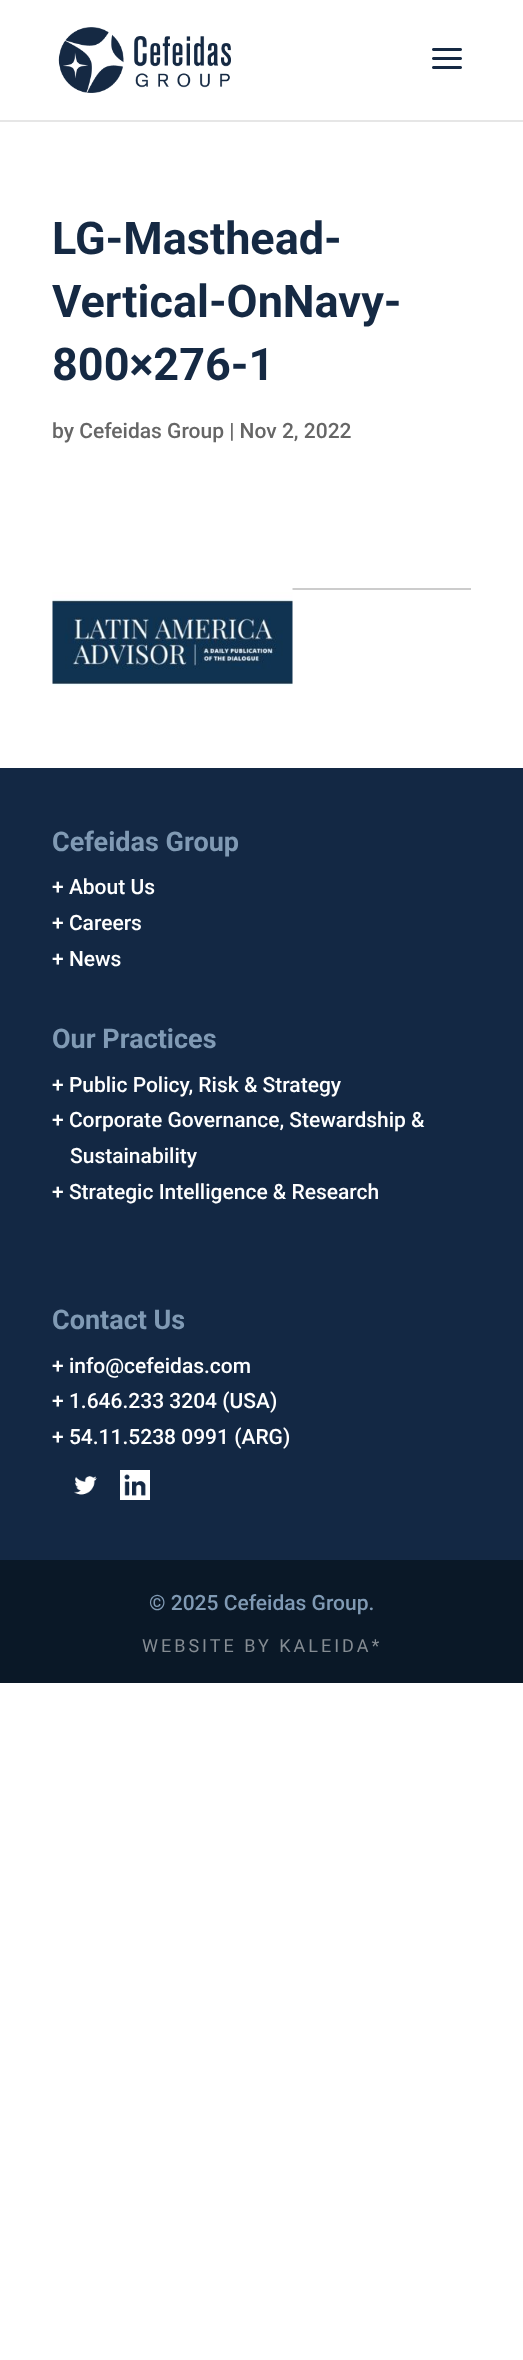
<svg xmlns="http://www.w3.org/2000/svg" width="523" height="2360">
<style>
.a{font:bold 45px Roboto;fill:#152943}
.b{font:500 21px Roboto;fill:#666}
.c{font:bold 27px Roboto;fill:#809ab4}
.d{font:500 21px Roboto;fill:#fff}
.e{font:500 21px Roboto;fill:#809ab4}
.f{font:18px Roboto;letter-spacing:3px;fill:#858c93}
</style>
<rect width="100%" height="100%" fill="#fff"/>
<path fill="#e6e6e6" d="M0 120v2h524v-120v118z"/>
<image href="1.png" x="58" y="27" width="173" height="66"/>
<image href="2.png" x="432" y="48" width="30" height="21"/>
<path fill="#ccc" d="M292 588h179v2H292z"/>
<image href="3.png" x="52" y="588" width="241" height="98"/>
<path fill="#132844" d="M0 768h523v792H0z"/>
<image href="4.png" x="74" y="1476" width="23" height="19"/>
<image href="5.png" x="120" y="1470" width="30" height="30"/>
<path fill="#0a1827" d="M0 1560h523v123H0z"/>
<text class="a" x="52" y="254">LG-Masthead-</text>
<text class="a" x="52" y="317">Vertical-OnNavy-</text>
<text class="a" x="52" y="380">800×276-1</text>
<text class="b" x="52" y="438">by Cefeidas Group | Nov 2, 2022</text>
<text class="c" x="52" y="851">Cefeidas Group</text>
<text class="d" x="52" y="894">+ About Us</text>
<text class="d" x="52" y="930">+ Careers</text>
<text class="d" x="52" y="966">+ News</text>
<text class="c" x="52" y="1048">Our Practices</text>
<text class="d" x="52" y="1092">+ Public Policy, Risk &amp; Strategy</text>
<text class="d" x="52" y="1127">+ Corporate Governance, Stewardship &amp;</text>
<text class="d" x="70" y="1163">Sustainability</text>
<text class="d" x="52" y="1199">+ Strategic Intelligence &amp; Research</text>
<text class="c" x="52" y="1329">Contact Us</text>
<text class="d" x="52" y="1373">+ info@cefeidas.com</text>
<text class="d" x="52" y="1408">+ 1.646.233 3204 (USA)</text>
<text class="d" x="52" y="1444">+ 54.11.5238 0991 (ARG)</text>
<text class="e" x="149" y="1610">© 2025 Cefeidas Group.</text>
<text class="f" x="142" y="1652">WEBSITE BY KALEIDA*</text>
</svg>
